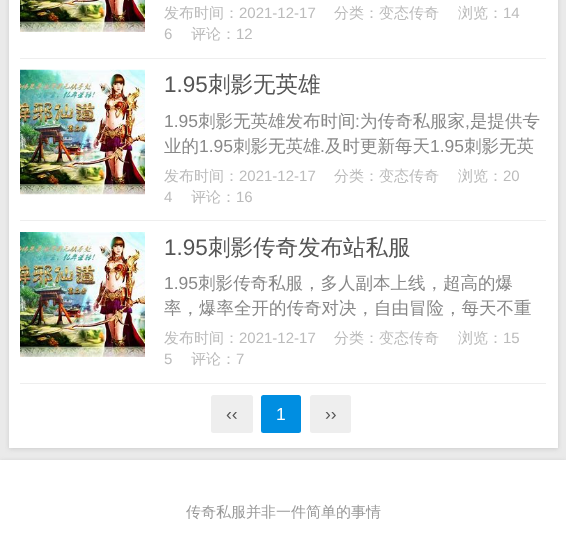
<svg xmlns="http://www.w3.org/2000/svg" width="566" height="560">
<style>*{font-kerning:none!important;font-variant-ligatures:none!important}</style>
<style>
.a{font:500 15px WenQuanYi Zen Hei;fill:#bbb}
.b{font:15px Liberation Sans;fill:#bbb}
.c{font:22.5px Liberation Sans;fill:#555}
.d{font:500 22.5px WenQuanYi Zen Hei;fill:#555}
.e{font:17.5px Liberation Sans;fill:#888}
.f{font:500 17.5px WenQuanYi Zen Hei;fill:#888}
.g{font:17.5px Liberation Sans;fill:#555}
.h{font:17.5px Liberation Sans;fill:#fff}
.i{font:500 15px WenQuanYi Zen Hei;fill:#999}
</style>
<rect width="100%" height="100%" fill="#eaeaea"/>
<path fill="#ccc" filter="blur(2px)" d="M9 -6h549v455H9z"/>
<path fill="#fff" d="M9 0h549v448H9z"/>
<image href="1.png" x="20" y="0" width="125" height="32"/>
<path fill="#eee" d="M20 58h526v1H20z"/>
<image href="2.png" x="20" y="69" width="125" height="126"/>
<path fill="#eee" d="M20 220h526v1H20z"/>
<image href="3.png" x="20" y="232" width="125" height="125"/>
<path fill="#eee" d="M20 383h526v1H20z"/>
<rect fill="#eee" x="211" y="395" width="42" height="38" rx="2.5"/>
<rect fill="#008ee1" x="261" y="395" width="40" height="38" rx="2.5"/>
<rect fill="#eee" x="310" y="395" width="41" height="38" rx="2.5"/>
<path fill="#ccc" filter="blur(2px)" d="M0 461h566v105H0z"/>
<path fill="#fff" d="M0 460h566v100H0z"/>
<text class="a" x="164" y="18">发布时间：</text>
<text class="b" x="239" y="18">2021-12-17</text>
<text class="a" x="334" y="18">分类：变态传奇</text>
<text class="a" x="458" y="18">浏览：</text>
<text class="b" x="503" y="18">14</text>
<text class="b" x="164" y="39">6</text>
<text class="a" x="191" y="39">评论：</text>
<text class="b" x="236" y="39">12</text>
<text class="c" x="164" y="92">1.95</text>
<text class="d" x="208" y="92">刺影无英雄</text>
<text class="e" x="164" y="127">1.95</text>
<text class="f" x="198" y="127">刺影无英雄发布时间</text>
<text class="e" x="355" y="127">:</text>
<text class="f" x="360" y="127">为传奇私服家</text>
<text class="f" x="470" y="127">是提供专</text>
<text class="e" x="465" y="127">,</text>
<text class="f" x="164" y="152">业的</text>
<text class="e" x="199" y="152">1.95</text>
<text class="f" x="233" y="152">刺影无英雄</text>
<text class="e" x="320" y="152">.</text>
<text class="f" x="325" y="152">及时更新每天</text>
<text class="e" x="430" y="152">1.95</text>
<text class="f" x="464" y="152">刺影无英</text>
<text class="a" x="164" y="181">发布时间：</text>
<text class="b" x="239" y="181">2021-12-17</text>
<text class="a" x="334" y="181">分类：变态传奇</text>
<text class="a" x="458" y="181">浏览：</text>
<text class="b" x="503" y="181">20</text>
<text class="b" x="164" y="202">4</text>
<text class="a" x="191" y="202">评论：</text>
<text class="b" x="236" y="202">16</text>
<text class="c" x="164" y="255">1.95</text>
<text class="d" x="208" y="255">刺影传奇发布站私服</text>
<text class="e" x="164" y="289">1.95</text>
<text class="f" x="198" y="289">刺影传奇私服，多人副本上线，超高的爆</text>
<text class="f" x="164" y="314">率，爆率全开的传奇对决，自由冒险，每天不重</text>
<text class="a" x="164" y="343">发布时间：</text>
<text class="b" x="239" y="343">2021-12-17</text>
<text class="a" x="334" y="343">分类：变态传奇</text>
<text class="a" x="458" y="343">浏览：</text>
<text class="b" x="503" y="343">15</text>
<text class="b" x="164" y="364">5</text>
<text class="a" x="191" y="364">评论：</text>
<text class="b" x="236" y="364">7</text>
<text class="g" x="226" y="420">‹‹</text>
<text class="h" x="276" y="420">1</text>
<text class="g" x="325" y="420">››</text>
<text class="i" x="186" y="517">传奇私服并非一件简单的事情</text>
</svg>
